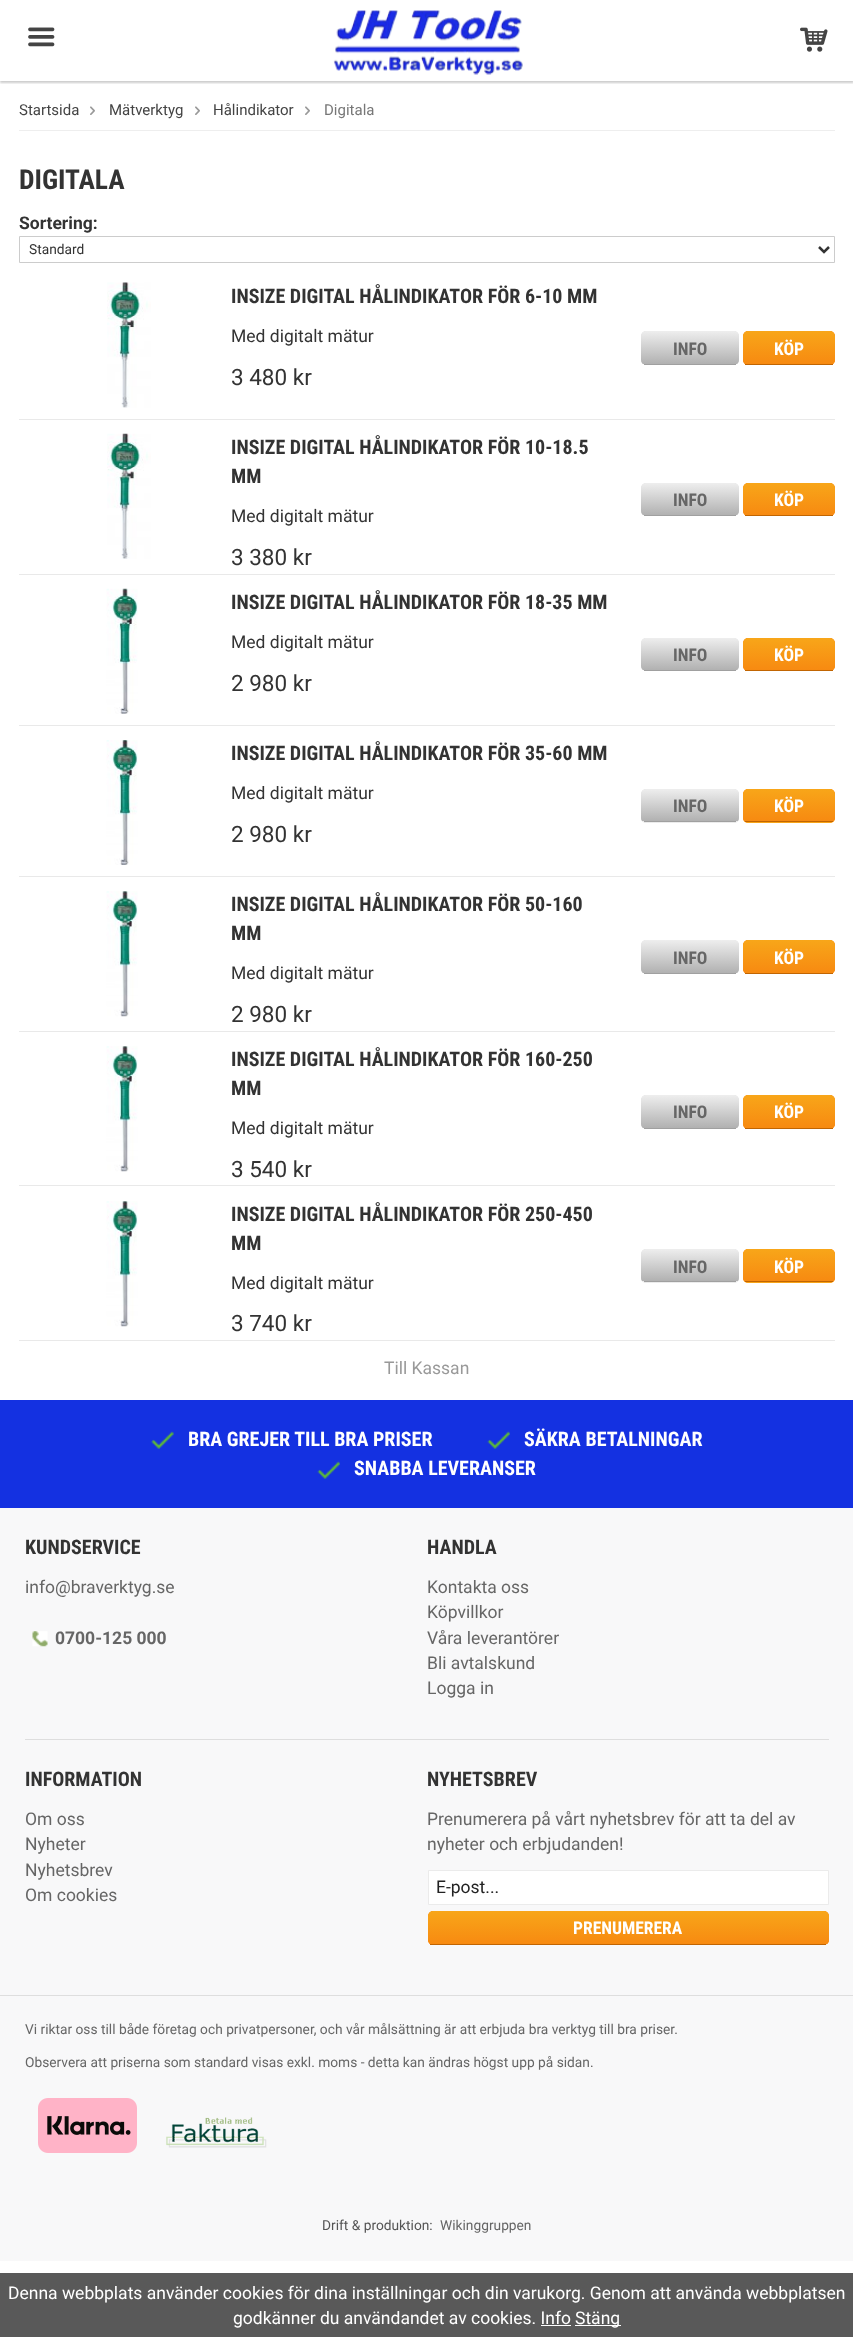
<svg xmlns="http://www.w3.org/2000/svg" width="853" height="2337">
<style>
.a{font:15px Roboto;fill:#444}
.b{font:15px Roboto;fill:#777}
.c{font:bold 27.5px Roboto Condensed;fill:#333}
.d{font:bold 17.5px Roboto;fill:#333}
.e{font:13.75px Roboto;fill:#333}
.f{font:bold 20px Roboto Condensed;fill:#333}
.g{font:17.5px Roboto;fill:#333}
.h{font:22.5px Roboto;fill:#333}
.i{font:bold 17.5px Roboto Condensed;fill:#666}
.j{font:bold 17.5px Roboto Condensed;fill:#fff}
.k{font:17.5px Roboto;fill:#999}
.l{font:bold 20px Roboto Condensed;fill:#fff}
.m{font:17.5px Roboto;fill:#666}
.n{font:bold 17.5px Roboto;fill:#666}
.o{font:17.5px Roboto;fill:#222}
.p{font:13.75px Roboto;fill:#666}
.q{font:13.75px Roboto;fill:#555}
.r{font:17.5px Roboto;fill:#fff}
</style>
<defs>
<clipPath id="clip1"><path d="M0 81h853v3H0z"/></clipPath>
<clipPath id="clip2"><rect x="641" y="331" width="98" height="34" rx="5"/></clipPath>
<linearGradient id="g1" gradientUnits="userSpaceOnUse" x1="690" y1="331" x2="690" y2="364"><stop offset="0" stop-color="#eee"/><stop offset="1" stop-color="#b1b1b1"/></linearGradient>
<clipPath id="clip3"><rect x="743" y="331" width="92" height="34" rx="5"/></clipPath>
<linearGradient id="g2" gradientUnits="userSpaceOnUse" x1="789" y1="331" x2="789" y2="364"><stop offset="0" stop-color="#f8a619"/><stop offset="1" stop-color="#f78a11"/></linearGradient>
<clipPath id="clip4"><rect x="641" y="483" width="98" height="33" rx="5"/></clipPath>
<linearGradient id="g3" gradientUnits="userSpaceOnUse" x1="690" y1="483" x2="690" y2="515"><stop offset="0" stop-color="#eee"/><stop offset="1" stop-color="#b1b1b1"/></linearGradient>
<clipPath id="clip5"><rect x="743" y="483" width="92" height="33" rx="5"/></clipPath>
<linearGradient id="g4" gradientUnits="userSpaceOnUse" x1="789" y1="483" x2="789" y2="515"><stop offset="0" stop-color="#f8a619"/><stop offset="1" stop-color="#f78a11"/></linearGradient>
<clipPath id="clip6"><rect x="641" y="638" width="98" height="33" rx="5"/></clipPath>
<linearGradient id="g5" gradientUnits="userSpaceOnUse" x1="690" y1="638" x2="690" y2="670"><stop offset="0" stop-color="#eee"/><stop offset="1" stop-color="#b1b1b1"/></linearGradient>
<clipPath id="clip7"><rect x="743" y="638" width="92" height="33" rx="5"/></clipPath>
<linearGradient id="g6" gradientUnits="userSpaceOnUse" x1="789" y1="638" x2="789" y2="670"><stop offset="0" stop-color="#f8a619"/><stop offset="1" stop-color="#f78a11"/></linearGradient>
<clipPath id="clip8"><rect x="641" y="789" width="98" height="34" rx="5"/></clipPath>
<linearGradient id="g7" gradientUnits="userSpaceOnUse" x1="690" y1="789" x2="690" y2="821"><stop offset="0" stop-color="#eee"/><stop offset="1" stop-color="#b1b1b1"/></linearGradient>
<linearGradient id="g8" gradientUnits="userSpaceOnUse" x1="690" y1="821" x2="690" y2="854"><stop offset="0" stop-color="#eee"/><stop offset="1" stop-color="#b1b1b1"/></linearGradient>
<clipPath id="clip9"><rect x="743" y="789" width="92" height="34" rx="5"/></clipPath>
<linearGradient id="g9" gradientUnits="userSpaceOnUse" x1="789" y1="789" x2="789" y2="821"><stop offset="0" stop-color="#f8a619"/><stop offset="1" stop-color="#f78a11"/></linearGradient>
<linearGradient id="g10" gradientUnits="userSpaceOnUse" x1="789" y1="821" x2="789" y2="854"><stop offset="0" stop-color="#f8a619"/><stop offset="1" stop-color="#f78a11"/></linearGradient>
<clipPath id="clip10"><rect x="641" y="940" width="98" height="34" rx="5"/></clipPath>
<linearGradient id="g11" gradientUnits="userSpaceOnUse" x1="690" y1="940" x2="690" y2="973"><stop offset="0" stop-color="#eee"/><stop offset="1" stop-color="#b1b1b1"/></linearGradient>
<clipPath id="clip11"><rect x="743" y="940" width="92" height="34" rx="5"/></clipPath>
<linearGradient id="g12" gradientUnits="userSpaceOnUse" x1="789" y1="940" x2="789" y2="973"><stop offset="0" stop-color="#f8a619"/><stop offset="1" stop-color="#f78a11"/></linearGradient>
<clipPath id="clip12"><rect x="641" y="1095" width="98" height="34" rx="5"/></clipPath>
<linearGradient id="g13" gradientUnits="userSpaceOnUse" x1="690" y1="1095" x2="690" y2="1128"><stop offset="0" stop-color="#eee"/><stop offset="1" stop-color="#b1b1b1"/></linearGradient>
<clipPath id="clip13"><rect x="743" y="1095" width="92" height="34" rx="5"/></clipPath>
<linearGradient id="g14" gradientUnits="userSpaceOnUse" x1="789" y1="1095" x2="789" y2="1128"><stop offset="0" stop-color="#f8a619"/><stop offset="1" stop-color="#f78a11"/></linearGradient>
<clipPath id="clip14"><rect x="641" y="1249" width="98" height="34" rx="5"/></clipPath>
<linearGradient id="g15" gradientUnits="userSpaceOnUse" x1="690" y1="1249" x2="690" y2="1281"><stop offset="0" stop-color="#eee"/><stop offset="1" stop-color="#b1b1b1"/></linearGradient>
<linearGradient id="g16" gradientUnits="userSpaceOnUse" x1="690" y1="1281" x2="690" y2="1314"><stop offset="0" stop-color="#eee"/><stop offset="1" stop-color="#b1b1b1"/></linearGradient>
<clipPath id="clip15"><rect x="743" y="1249" width="92" height="34" rx="5"/></clipPath>
<linearGradient id="g17" gradientUnits="userSpaceOnUse" x1="789" y1="1249" x2="789" y2="1281"><stop offset="0" stop-color="#f8a619"/><stop offset="1" stop-color="#f78a11"/></linearGradient>
<linearGradient id="g18" gradientUnits="userSpaceOnUse" x1="789" y1="1281" x2="789" y2="1314"><stop offset="0" stop-color="#f8a619"/><stop offset="1" stop-color="#f78a11"/></linearGradient>
<clipPath id="clip16"><rect x="428" y="1911" width="401" height="34" rx="5"/></clipPath>
<linearGradient id="g19" gradientUnits="userSpaceOnUse" x1="628" y1="1911" x2="628" y2="1944"><stop offset="0" stop-color="#f8a619"/><stop offset="1" stop-color="#f78a11"/></linearGradient>
</defs>
<rect width="100%" height="100%" fill="#fff"/>
<g clip-path="url(#clip1)">
<path fill="#00000033" filter="blur(1px)" d="M0 1h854v82H0z"/>
</g>
<image href="1.png" x="28" y="27" width="27" height="20"/>
<image href="2.png" x="333" y="10" width="190" height="65"/>
<image href="3.png" x="800" y="27" width="28" height="25"/>
<path fill="#eee" d="M19 130h816v1H19z"/>
<image href="4.png" x="90" y="106" width="5" height="9"/>
<image href="4.png" x="195" y="106" width="5" height="9"/>
<image href="4.png" x="305" y="106" width="5" height="9"/>
<path fill="none" stroke="#ccc" d="M19.5 236.5h815v26H19.5z"/>
<path fill="none" stroke="#333" stroke-width="2.5" d="M819 247l5 5l5-5"/>
<path fill="#e9e9e9" d="M19 419h816v1H19z"/>
<image href="5.png" x="107" y="282" width="44" height="126"/>
<rect fill="#e1e1e1" x="641" y="331" width="98" height="34" rx="5"/>
<g clip-path="url(#clip2)">
<path fill="url(#g1)" d="M646 331h88c3 0 5 2 5 5v28h-98v-28c0-3 2-5 5-5z"/>
</g>
<path fill="#a0a0a0" d="M644 364h92v1H644z"/>
<rect fill="#f78102" x="743" y="331" width="92" height="34" rx="5"/>
<g clip-path="url(#clip3)">
<path fill="url(#g2)" d="M748 331h82c3 0 5 2 5 5v28h-92v-28c0-3 2-5 5-5z"/>
</g>
<path fill="#c16502" d="M745 364h88v1H745z"/>
<path fill="#e9e9e9" d="M19 574h816v1H19z"/>
<image href="6.png" x="107" y="433" width="44" height="126"/>
<rect fill="#e1e1e1" x="641" y="483" width="98" height="33" rx="5"/>
<g clip-path="url(#clip4)">
<path fill="url(#g3)" d="M646 483h88c3 0 5 2 5 5v27h-98v-27c0-3 2-5 5-5z"/>
</g>
<path fill="#a0a0a0" d="M644 515h92v1H644z"/>
<rect fill="#f78102" x="743" y="483" width="92" height="33" rx="5"/>
<g clip-path="url(#clip5)">
<path fill="url(#g4)" d="M748 483h82c3 0 5 2 5 5v27h-92v-27c0-3 2-5 5-5z"/>
</g>
<path fill="#c16502" d="M745 515h88v1H745z"/>
<path fill="#e9e9e9" d="M19 725h816v1H19z"/>
<image href="7.png" x="106" y="588" width="32" height="126"/>
<rect fill="#e1e1e1" x="641" y="638" width="98" height="33" rx="5"/>
<g clip-path="url(#clip6)">
<path fill="url(#g5)" d="M646 638h88c3 0 5 2 5 5v27h-98v-27c0-3 2-5 5-5z"/>
</g>
<path fill="#a0a0a0" d="M644 670h92v1H644z"/>
<rect fill="#f78102" x="743" y="638" width="92" height="33" rx="5"/>
<g clip-path="url(#clip7)">
<path fill="url(#g6)" d="M748 638h82c3 0 5 2 5 5v27h-92v-27c0-3 2-5 5-5z"/>
</g>
<path fill="#c16502" d="M745 670h88v1H745z"/>
<path fill="#e9e9e9" d="M19 876h816v1H19z"/>
<image href="8.png" x="106" y="740" width="32" height="125"/>
<rect fill="#e1e1e1" x="641" y="789" width="98" height="34" rx="5"/>
<g clip-path="url(#clip8)">
<path fill="url(#g7)" d="M646 789h88c3 0 5 2 5 5v27h-98v-27c0-3 2-5 5-5z"/>
<path fill="url(#g8)" d="M641 821h98v2H641z"/>
</g>
<path fill="#a0a0a0" d="M644 821h92v1H644z"/>
<rect fill="#f78102" x="743" y="789" width="92" height="34" rx="5"/>
<g clip-path="url(#clip9)">
<path fill="url(#g9)" d="M748 789h82c3 0 5 2 5 5v27h-92v-27c0-3 2-5 5-5z"/>
<path fill="url(#g10)" d="M743 821h92v2H743z"/>
</g>
<path fill="#c16502" d="M745 821h88v1H745z"/>
<path fill="#e9e9e9" d="M19 1031h816v1H19z"/>
<image href="9.png" x="106" y="891" width="32" height="126"/>
<rect fill="#e1e1e1" x="641" y="940" width="98" height="34" rx="5"/>
<g clip-path="url(#clip10)">
<path fill="url(#g11)" d="M646 940h88c3 0 5 2 5 5v28h-98v-28c0-3 2-5 5-5z"/>
</g>
<path fill="#a0a0a0" d="M644 973h92v1H644z"/>
<rect fill="#f78102" x="743" y="940" width="92" height="34" rx="5"/>
<g clip-path="url(#clip11)">
<path fill="url(#g12)" d="M748 940h82c3 0 5 2 5 5v28h-92v-28c0-3 2-5 5-5z"/>
</g>
<path fill="#c16502" d="M745 973h88v1H745z"/>
<path fill="#e9e9e9" d="M19 1185h816v1H19z"/>
<image href="9.png" x="106" y="1046" width="32" height="126"/>
<rect fill="#e1e1e1" x="641" y="1095" width="98" height="34" rx="5"/>
<g clip-path="url(#clip12)">
<path fill="url(#g13)" d="M646 1095h88c3 0 5 2 5 5v28h-98v-28c0-3 2-5 5-5z"/>
</g>
<path fill="#a0a0a0" d="M644 1128h92v1H644z"/>
<rect fill="#f78102" x="743" y="1095" width="92" height="34" rx="5"/>
<g clip-path="url(#clip13)">
<path fill="url(#g14)" d="M748 1095h82c3 0 5 2 5 5v28h-92v-28c0-3 2-5 5-5z"/>
</g>
<path fill="#c16502" d="M745 1128h88v1H745z"/>
<path fill="#e9e9e9" d="M19 1340h816v1H19z"/>
<image href="9.png" x="106" y="1201" width="32" height="126"/>
<rect fill="#e1e1e1" x="641" y="1249" width="98" height="34" rx="5"/>
<g clip-path="url(#clip14)">
<path fill="url(#g15)" d="M646 1249h88c3 0 5 2 5 5v27h-98v-27c0-3 2-5 5-5z"/>
<path fill="url(#g16)" d="M641 1281h98v2H641z"/>
</g>
<path fill="#a0a0a0" d="M644 1281h92v1H644z"/>
<rect fill="#f78102" x="743" y="1249" width="92" height="34" rx="5"/>
<g clip-path="url(#clip15)">
<path fill="url(#g17)" d="M748 1249h82c3 0 5 2 5 5v27h-92v-27c0-3 2-5 5-5z"/>
<path fill="url(#g18)" d="M743 1281h92v2H743z"/>
</g>
<path fill="#c16502" d="M745 1281h88v1H745z"/>
<path fill="#1431e1" d="M0 1400h853v108H0z"/>
<image href="10.png" x="151" y="1431" width="23" height="18"/>
<image href="11.png" x="487" y="1431" width="23" height="18"/>
<image href="11.png" x="317" y="1461" width="23" height="18"/>
<path fill="#f8f8f9" d="M0 1508h853v487H0z"/>
<path fill="#dedede" d="M0 1995h853v1H0z"/>
<image href="12.png" x="32" y="1631" width="16" height="16"/>
<path fill="#dedede" d="M25 1739h804v1H25z"/>
<path fill="#fff" stroke="#ebebeb" d="M428.5 1870.5h400v34H428.5z"/>
<rect fill="#f78102" x="428" y="1911" width="401" height="34" rx="5"/>
<g clip-path="url(#clip16)">
<path fill="url(#g19)" d="M433 1911h391c3 0 5 2 5 5v28h-401v-28c0-3 2-5 5-5z"/>
</g>
<path fill="#c16502" d="M430 1944h396v1H430z"/>
<path fill="#f8f8f9" d="M0 1996h853v265H0z"/>
<image href="13.png" x="38" y="2098" width="99" height="55"/>
<image href="14.png" x="166" y="2117" width="101" height="31"/>
<path fill="#595959" d="M0 2273h853v64H0z"/>
<path fill="#fff" d="M575 2325h46v1H575z"/>
<path fill="#fff" d="M541 2325h30v1H541z"/>
<text class="a" x="19" y="115">Startsida</text>
<text class="a" x="109" y="115">Mätverktyg</text>
<text class="a" x="213" y="115">Hålindikator</text>
<text class="b" x="324" y="115">Digitala</text>
<text class="c" x="19" y="189">DIGITALA</text>
<text class="d" x="19" y="229">Sortering:</text>
<text class="e" x="29" y="254">Standard</text>
<text class="f" x="231" y="303">INSIZE DIGITAL HÅLINDIKATOR FÖR 6-10 MM</text>
<text class="g" x="231" y="342">Med digitalt mätur</text>
<text class="h" x="231" y="385">3 480 kr</text>
<text class="i" x="673" y="355">INFO</text>
<text class="j" x="774" y="355">KÖP</text>
<text class="f" x="231" y="454">INSIZE DIGITAL HÅLINDIKATOR FÖR 10-18.5</text>
<text class="f" x="231" y="483">MM</text>
<text class="g" x="231" y="522">Med digitalt mätur</text>
<text class="h" x="231" y="565">3 380 kr</text>
<text class="i" x="673" y="506">INFO</text>
<text class="j" x="774" y="506">KÖP</text>
<text class="f" x="231" y="609">INSIZE DIGITAL HÅLINDIKATOR FÖR 18-35 MM</text>
<text class="g" x="231" y="648">Med digitalt mätur</text>
<text class="h" x="231" y="691">2 980 kr</text>
<text class="i" x="673" y="661">INFO</text>
<text class="j" x="774" y="661">KÖP</text>
<text class="f" x="231" y="760">INSIZE DIGITAL HÅLINDIKATOR FÖR 35-60 MM</text>
<text class="g" x="231" y="799">Med digitalt mätur</text>
<text class="h" x="231" y="842">2 980 kr</text>
<text class="i" x="673" y="812">INFO</text>
<text class="j" x="774" y="812">KÖP</text>
<text class="f" x="231" y="911">INSIZE DIGITAL HÅLINDIKATOR FÖR 50-160</text>
<text class="f" x="231" y="940">MM</text>
<text class="g" x="231" y="979">Med digitalt mätur</text>
<text class="h" x="231" y="1022">2 980 kr</text>
<text class="i" x="673" y="964">INFO</text>
<text class="j" x="774" y="964">KÖP</text>
<text class="f" x="231" y="1066">INSIZE DIGITAL HÅLINDIKATOR FÖR 160-250</text>
<text class="f" x="231" y="1095">MM</text>
<text class="g" x="231" y="1134">Med digitalt mätur</text>
<text class="h" x="231" y="1177">3 540 kr</text>
<text class="i" x="673" y="1118">INFO</text>
<text class="j" x="774" y="1118">KÖP</text>
<text class="f" x="231" y="1221">INSIZE DIGITAL HÅLINDIKATOR FÖR 250-450</text>
<text class="f" x="231" y="1250">MM</text>
<text class="g" x="231" y="1289">Med digitalt mätur</text>
<text class="h" x="231" y="1331">3 740 kr</text>
<text class="i" x="673" y="1273">INFO</text>
<text class="j" x="774" y="1273">KÖP</text>
<text class="k" x="384" y="1374">Till Kassan</text>
<text class="l" x="188" y="1446">BRA GREJER TILL BRA PRISER</text>
<text class="l" x="524" y="1446">SÄKRA BETALNINGAR</text>
<text class="l" x="354" y="1475">SNABBA LEVERANSER</text>
<text class="f" x="25" y="1554">KUNDSERVICE</text>
<text class="m" x="25" y="1593">info@braverktyg.se</text>
<text class="n" x="55" y="1644">0700-125 000</text>
<text class="f" x="427" y="1554">HANDLA</text>
<text class="m" x="427" y="1593">Kontakta oss</text>
<text class="m" x="427" y="1618">Köpvillkor</text>
<text class="m" x="427" y="1644">Våra leverantörer</text>
<text class="m" x="427" y="1669">Bli avtalskund</text>
<text class="m" x="427" y="1694">Logga in</text>
<text class="f" x="25" y="1786">INFORMATION</text>
<text class="m" x="25" y="1825">Om oss</text>
<text class="m" x="25" y="1850">Nyheter</text>
<text class="m" x="25" y="1876">Nyhetsbrev</text>
<text class="m" x="25" y="1901">Om cookies</text>
<text class="f" x="427" y="1786">NYHETSBREV</text>
<text class="m" x="427" y="1825">Prenumerera på vårt nyhetsbrev för att ta del av</text>
<text class="m" x="427" y="1850">nyheter och erbjudanden!</text>
<text class="o" x="436" y="1893">E-post...</text>
<text class="j" x="573" y="1934">PRENUMERERA</text>
<text class="p" x="25" y="2034">Vi riktar oss till både företag och privatpersoner, och vår målsättning är att erbjuda bra verktyg till bra priser.</text>
<text class="p" x="25" y="2067">Observera att priserna som standard visas exkl. moms - detta kan ändras högst upp på sidan.</text>
<text class="q" x="322" y="2230">Drift &amp; produktion:</text>
<text class="p" x="440" y="2230">Wikinggruppen</text>
<text class="r" x="8" y="2299">Denna webbplats använder cookies för dina inställningar och din varukorg. Genom att använda webbplatsen</text>
<text class="r" x="233" y="2324">godkänner du användandet av cookies. Info</text>
<text class="r" x="575" y="2324">Stäng</text>
</svg>
